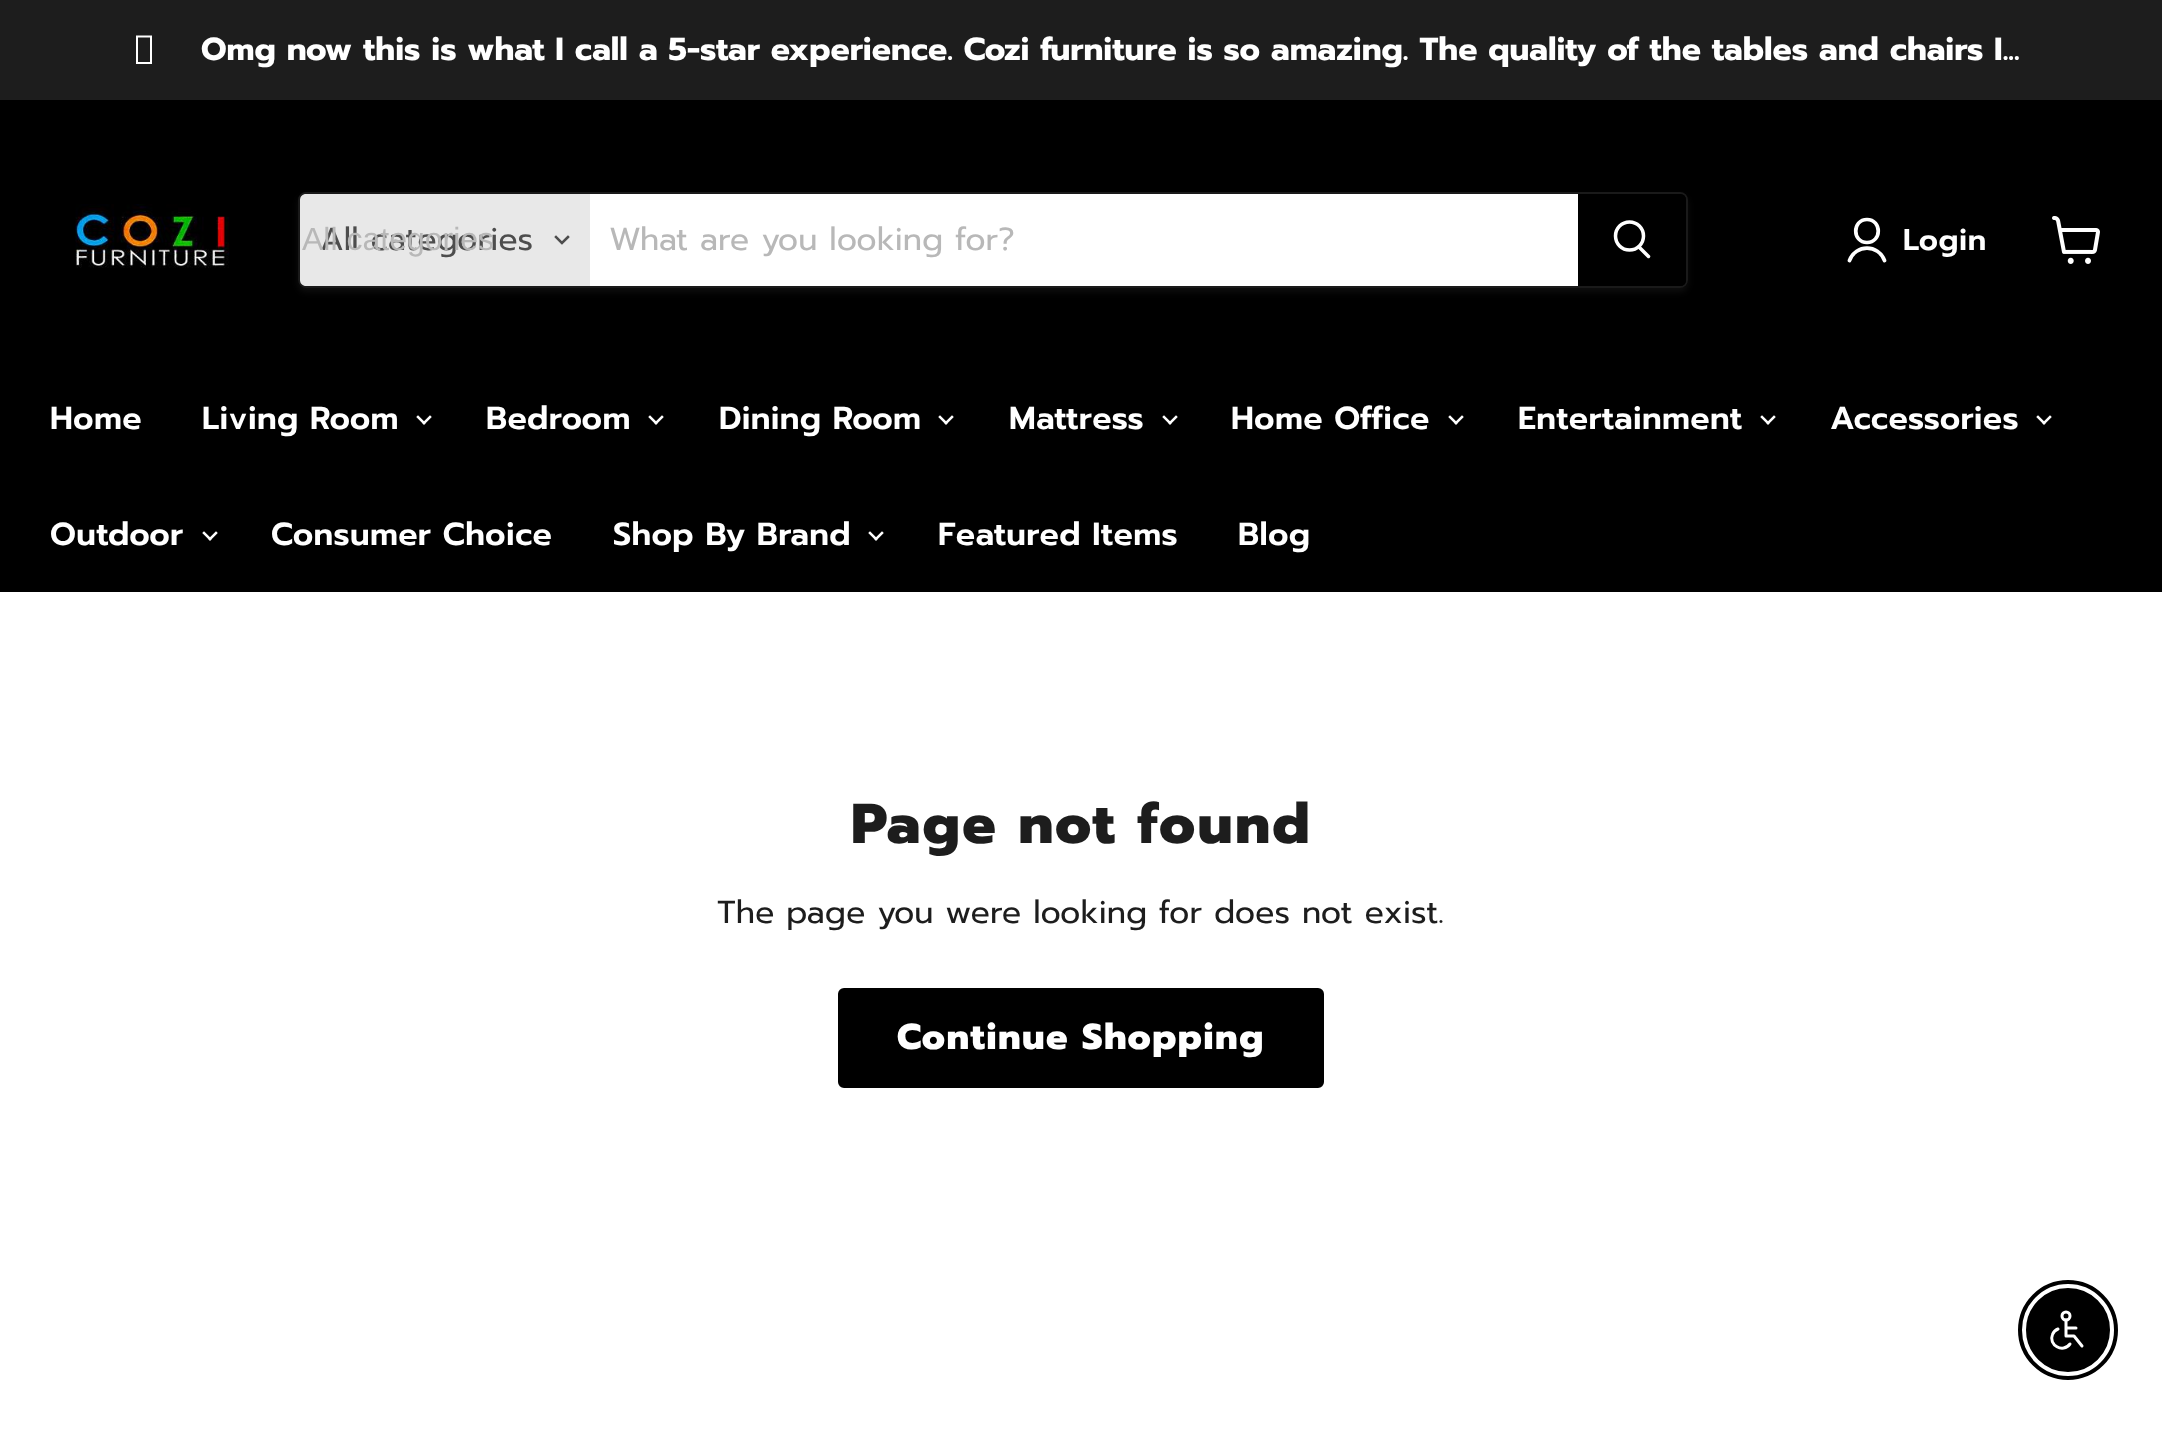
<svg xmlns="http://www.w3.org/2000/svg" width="2162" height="1444">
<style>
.a{font:bold 32px Prompt;fill:#fff}
.b{font:32px Prompt;fill:#4d4d4d}
.c{font:32px Liberation Sans;fill:#b8b8b8}
.d{font:32px Prompt;fill:#b8b8b8}
.e{font:600 30px Prompt;letter-spacing:0.5px;fill:#fff}
.f{font:600 32px Prompt;letter-spacing:0.3px;fill:#fff}
.g{font:800 56px Prompt;letter-spacing:2.25px;fill:#1d1d1d}
.h{font:32px Prompt;fill:#1d1d1d}
.i{font:800 36px Prompt;letter-spacing:1.4px;fill:#fff}
</style>
<defs>
<clipPath id="clip1"><path d="M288 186h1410v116h-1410zm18 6h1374c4.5 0 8 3.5 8 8v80c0 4.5-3.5 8-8 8h-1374c-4.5 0-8-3.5-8-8v-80c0-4.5 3.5-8 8-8z" clip-rule="evenodd"/></clipPath>
</defs>
<rect width="100%" height="100%" fill="#fff"/>
<path fill="#1d1d1d" d="M0 0h2162v100H0z"/>
<path fill="#fff" d="M136 64v-28.5h16v28.5zm2-2h12v-24.5h-12z"/>
<path fill="#000" d="M0 100h2162v492H0z"/>
<image href="1.png" x="75" y="204" width="155" height="64"/>
<g clip-path="url(#clip1)">
<rect fill="#8080801c" filter="blur(3px)" x="298" y="196" width="1390" height="96" rx="8"/>
</g>
<rect fill="none" stroke="#80808033" stroke-width="2" x="299" y="193" width="1388" height="94" rx="7"/>
<path fill="#e8e8e8" d="M306 194h284v92h-284c-3.5 0-6-2.5-6-6v-80c0-3.5 2.5-6 6-6z"/>
<path fill="none" stroke="#4d4d4d" stroke-width="2.5" stroke-linecap="square" d="M562 243l6-6m-6 6l-6-6"/>
<path fill="#fff" d="M590 194h988v92H590z"/>
<path fill="#000" stroke="#000" stroke-width="2" d="M1579 195h101c3 0 5 2 5 5v80c0 3-2 5-5 5h-101z"/>
<path fill="none" stroke="#fff" stroke-width="3.5" stroke-linecap="round" d="M1648.5 256.5l-9.5-9.5"/>
<circle fill="none" stroke="#fff" stroke-width="3.5" cx="1629.5" cy="236" r="14"/>
<path fill="none" stroke="#fff" stroke-width="3.7" stroke-linecap="round" stroke-linejoin="round" d="M1867 242.5c15 0 15-23 0-23c-15 0-15 23 0 23zm17.5 18c-6-16.5-29-16.5-35 0"/>
<image href="2.png" x="2052" y="216" width="48" height="48"/>
<image href="3.png" x="416" y="415" width="16" height="10"/>
<image href="3.png" x="648" y="415" width="16" height="10"/>
<image href="3.png" x="938" y="415" width="16" height="10"/>
<image href="3.png" x="1162" y="415" width="16" height="10"/>
<image href="3.png" x="1448" y="415" width="16" height="10"/>
<image href="3.png" x="1760" y="415" width="16" height="10"/>
<image href="3.png" x="2036" y="415" width="16" height="10"/>
<image href="3.png" x="202" y="531" width="16" height="10"/>
<image href="3.png" x="868" y="531" width="16" height="10"/>
<rect fill="#000" stroke="#000" stroke-width="2" x="839" y="989" width="484" height="98" rx="5"/>
<circle fill="none" stroke="#000" stroke-width="4" cx="2068" cy="1330" r="48"/>
<circle fill="#000" stroke="#000" stroke-width="2" cx="2068" cy="1330" r="41"/>
<circle fill="none" stroke="#fff" stroke-width="3" cx="2066" cy="1316" r="4"/>
<path fill="none" stroke="#fff" stroke-width="3" stroke-linecap="round" stroke-linejoin="round" d="M2066 1320v16h8l8 10m-16-18h10m-18 1c-2.5 1-4.5 3-5.5 5.5c-4.5 10.5 10.5 19 17.5 9.5"/>
<text class="a" x="201" y="60">Omg now this is what I call a 5-star experience. Cozi furniture is so amazing. The quality of the tables and chairs I...</text>
<text class="b" x="320" y="250">All categories</text>
<text class="c" x="302" y="250">All categories</text>
<text class="d" x="609" y="250">What are you looking for?</text>
<text class="e" x="1903" y="250">Login</text>
<text class="f" x="50" y="429">Home</text>
<text class="f" x="202" y="429">Living Room</text>
<text class="f" x="486" y="429">Bedroom</text>
<text class="f" x="719" y="429">Dining Room</text>
<text class="f" x="1009" y="429">Mattress</text>
<text class="f" x="1231" y="429">Home Office</text>
<text class="f" x="1518" y="429">Entertainment</text>
<text class="f" x="1830" y="429">Accessories</text>
<text class="f" x="50" y="545">Outdoor</text>
<text class="f" x="271" y="545">Consumer Choice</text>
<text class="f" x="613" y="545">Shop By Brand</text>
<text class="f" x="938" y="545">Featured Items</text>
<text class="f" x="1238" y="545">Blog</text>
<text class="g" x="851" y="843">Page not found</text>
<text class="h" x="717" y="923">The page you were looking for does not exist.</text>
<text class="i" x="897" y="1049">Continue Shopping</text>
</svg>
